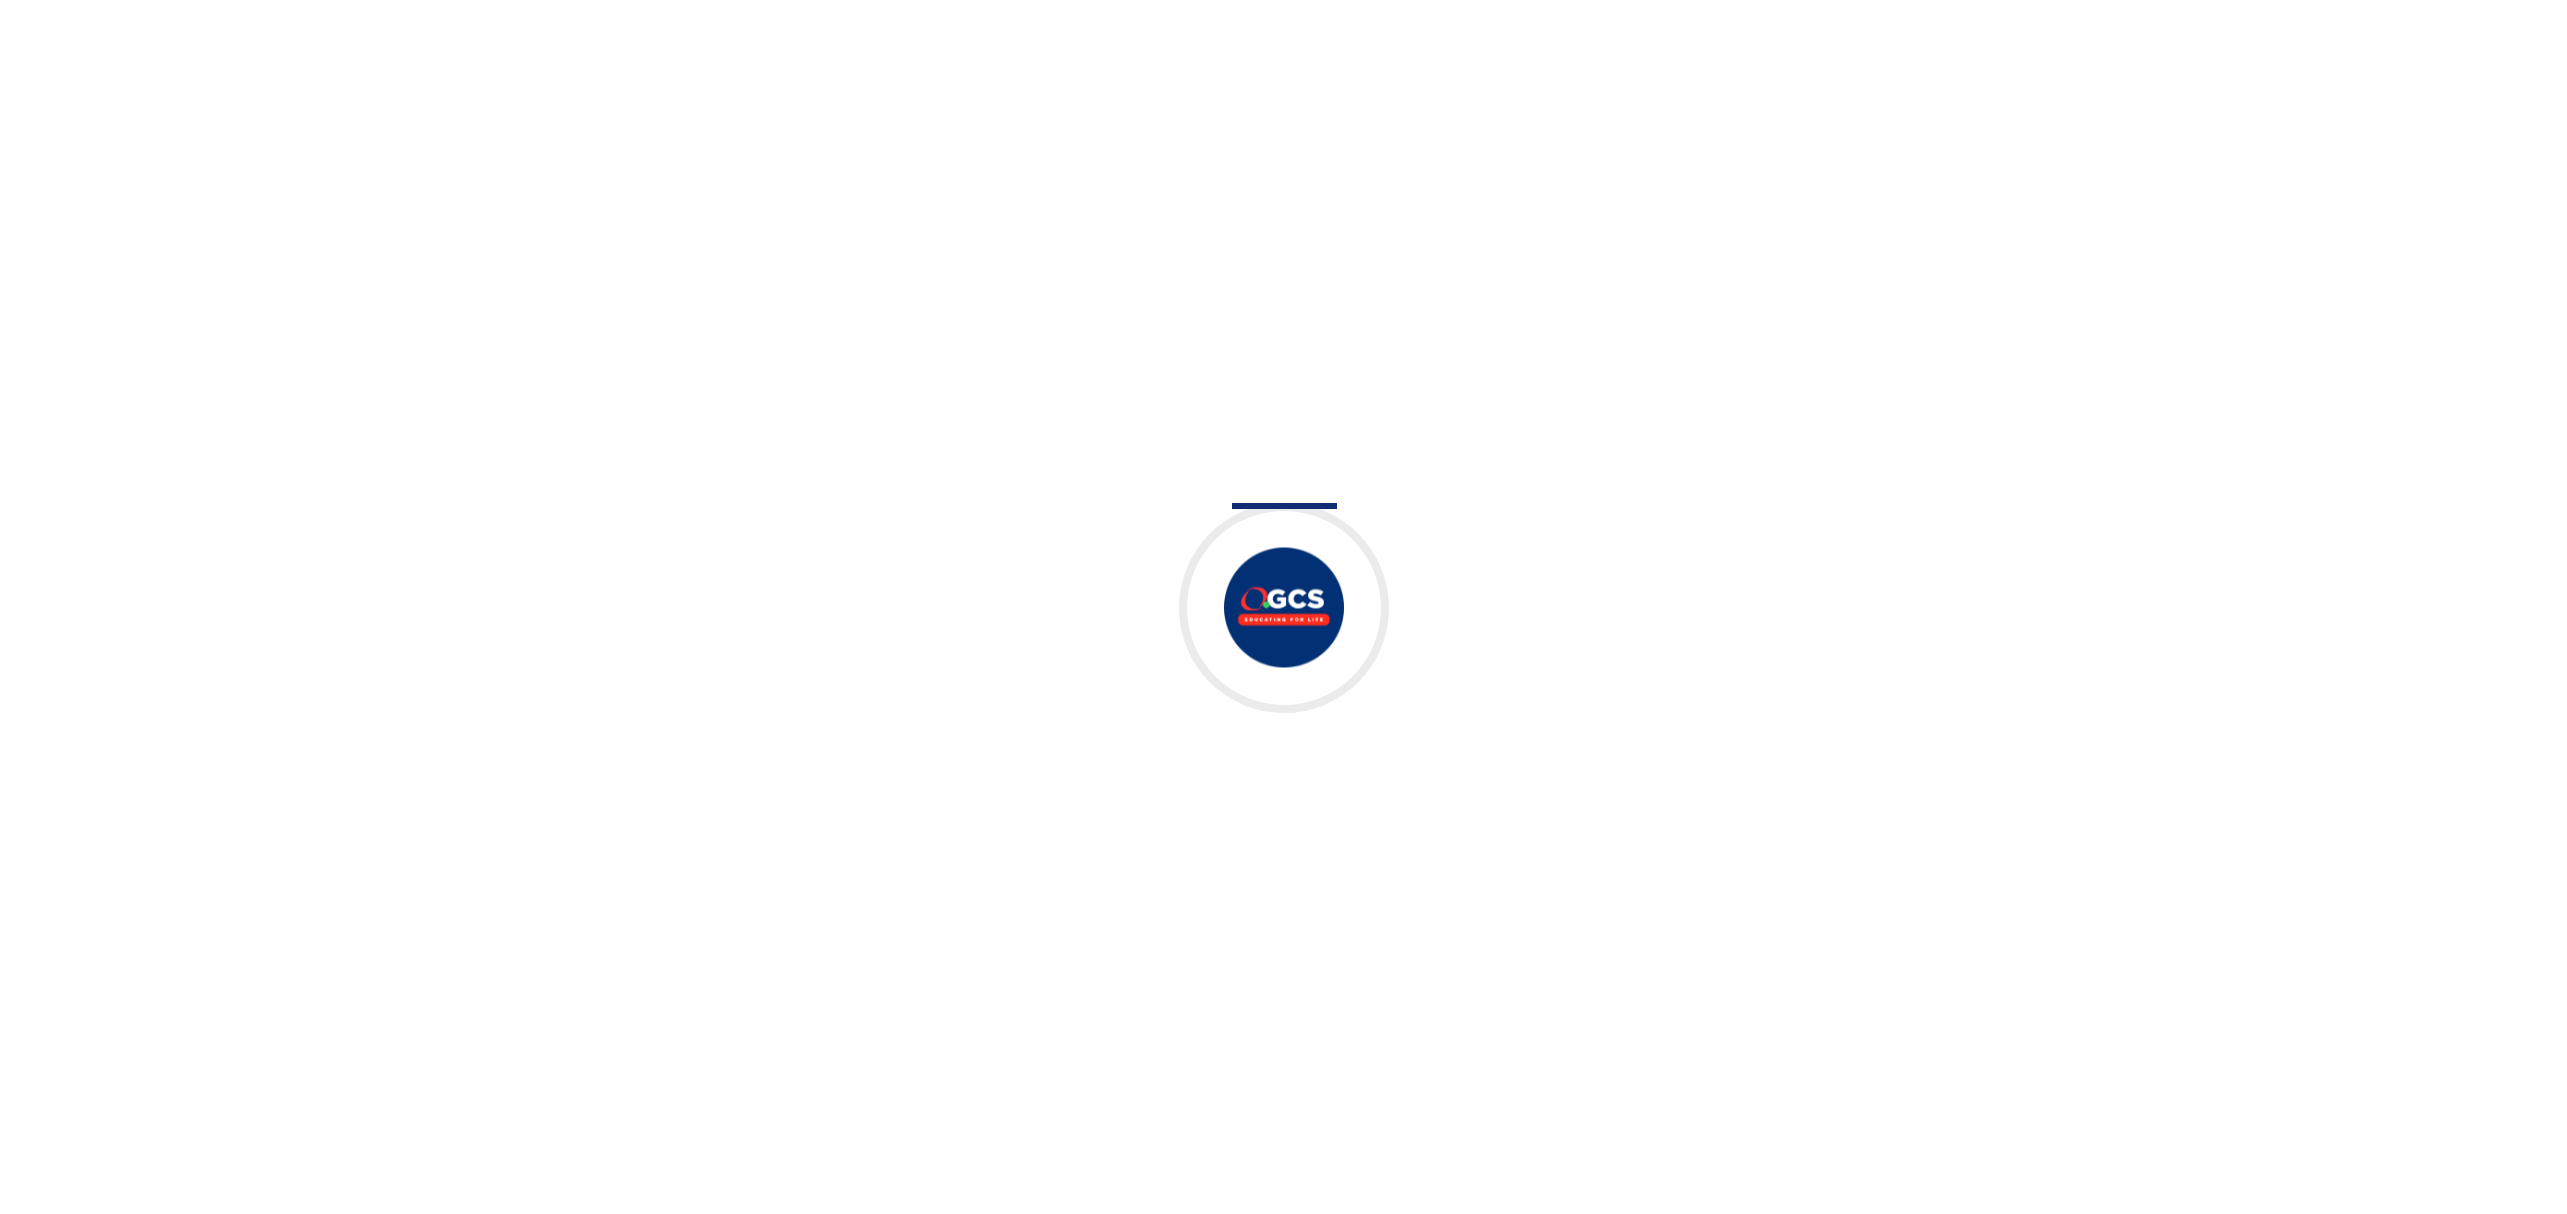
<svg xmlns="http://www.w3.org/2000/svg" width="2567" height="1214">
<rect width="100%" height="100%" fill="#fff"/>
<image href="1.png" x="354" y="30" width="21" height="17"/>
<image href="2.png" x="618" y="26" width="21" height="22"/>
<image href="3.png" x="1597" y="29" width="22" height="18"/>
<image href="4.png" x="90" y="138" width="23" height="19"/>
<image href="5.png" x="1119" y="121" width="60" height="50"/>
<image href="6.png" x="2368" y="132" width="28" height="28"/>
<image href="7.png" x="0" y="355" width="2567" height="859"/>
<circle fill="none" stroke="#ebebec" stroke-width="8" cx="1284" cy="608" r="101"/>
<path fill="#102d73" d="M1232 503h105v6H1232z"/>
<image href="8.png" x="1224" y="547" width="120" height="121"/>
</svg>
